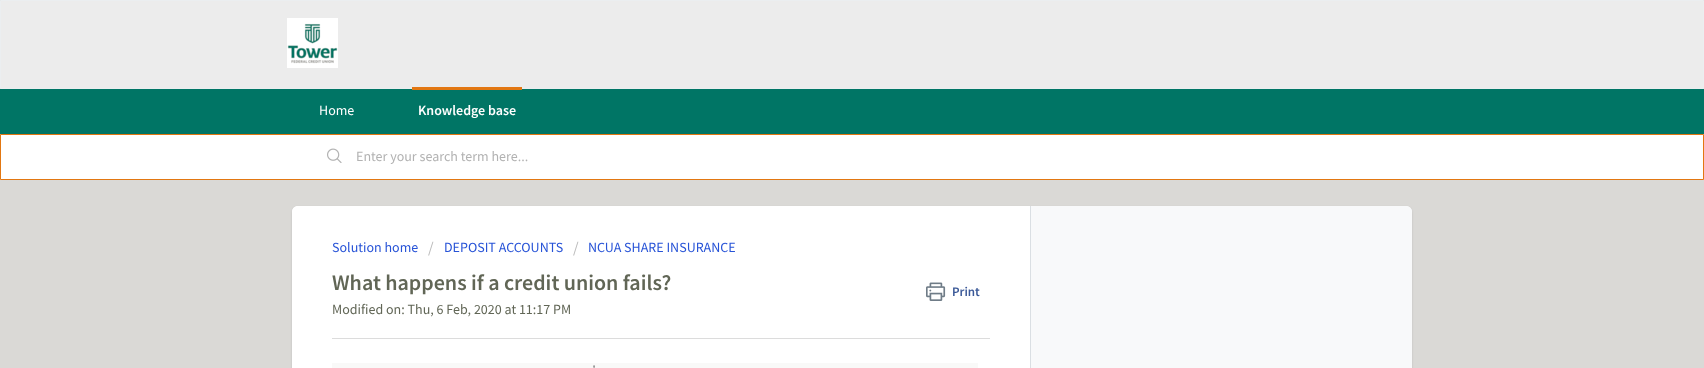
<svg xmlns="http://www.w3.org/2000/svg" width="1704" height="368">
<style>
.a{font:14px Source Sans Pro;fill:#fff}
.b{font:600 14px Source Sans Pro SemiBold;fill:#fff}
.c{font:14px Source Sans Pro;fill:#b2b2b2}
.d{font:14px Source Sans Pro;fill:#2753d7}
.e{font:16px Source Sans Pro;fill:#bbb}
.f{font:600 22px Source Sans Pro SemiBold;fill:#616656}
.g{font:600 13px Source Sans Pro SemiBold;fill:#3b5998}
.h{font:14px Source Sans Pro;fill:#616656}
.i{font:11px Liberation Sans;fill:#333}
</style>
<rect width="100%" height="100%" fill="#dad9d6"/>
<path fill="#ececec" stroke="#ebeef0" d="M0.5 0.5h1703v88H0.5z"/>
<image href="1.png" x="287" y="18" width="51" height="50"/>
<path fill="#007565" d="M0 89h1704v45H0z"/>
<path fill="#e27712" d="M412 87h110v3H412z"/>
<path fill="#fff" stroke="#e27712" d="M0.5 134.5h1703v45H0.5z"/>
<image href="2.png" x="327" y="148" width="15" height="15"/>
<rect fill="#3f3f4426" filter="blur(1px)" x="292" y="207" width="1120" height="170" rx="6"/>
<rect fill="#f8f9fa" x="292" y="206" width="1120" height="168" rx="6"/>
<path fill="#f8f9fa" d="M1031 206h375c3.5 0 6 2.5 6 6v8c0 3.5-2.5 6-6 6h-375z"/>
<path fill="#fff" d="M298 206h733v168h-733c-3.5 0-6-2.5-6-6v-156c0-3.5 2.5-6 6-6z"/>
<path fill="#dadfe3" d="M1030 206h1v162H1030z"/>
<image href="3.png" x="926" y="282" width="20" height="19"/>
<path fill="#dcdcdc" d="M332 338h658v1H332z"/>
<path fill="#f9f9f8" d="M332 363h646v5H332z"/>
<text class="a" x="319" y="115">Home</text>
<text class="b" x="418" y="115">Knowledge base</text>
<text class="c" x="356" y="161">Enter your search term here...</text>
<text class="d" x="332" y="252">Solution home</text>
<text class="e" x="428" y="253">/</text>
<text class="d" x="444" y="252">DEPOSIT ACCOUNTS</text>
<text class="e" x="573" y="253">/</text>
<text class="d" x="588" y="252">NCUA SHARE INSURANCE</text>
<text class="f" x="332" y="290">What happens if a credit union fails?</text>
<text class="g" x="952" y="296">Print</text>
<text class="h" x="332" y="314">Modified on: Thu, 6 Feb, 2020 at 11:17 PM</text>
<text class="i" x="593" y="373">'</text>
</svg>
